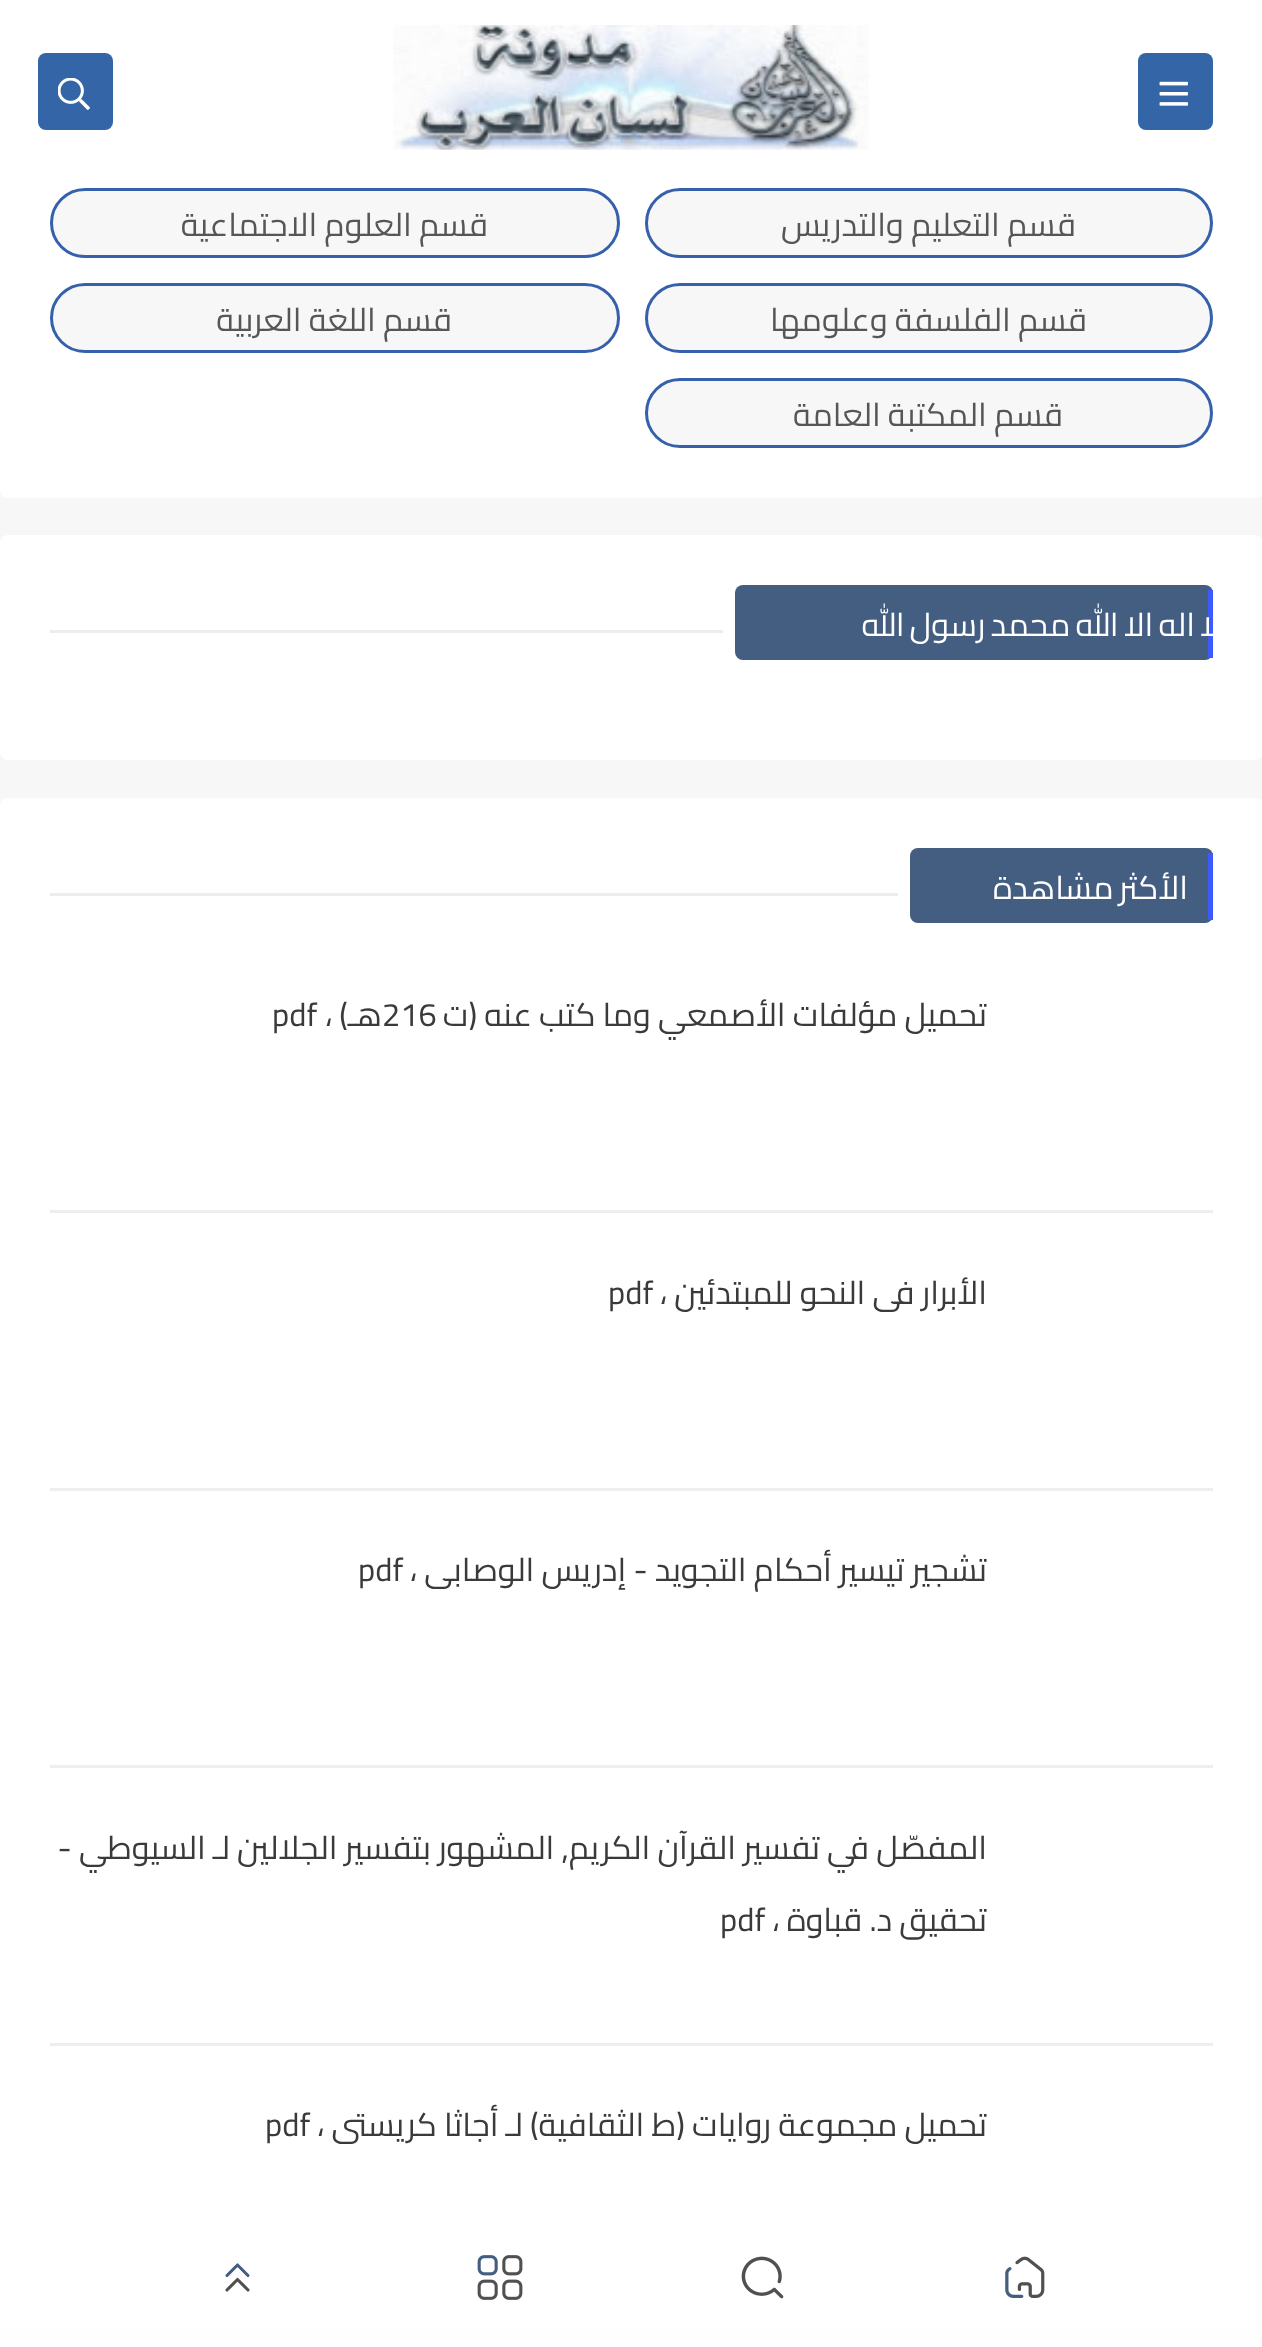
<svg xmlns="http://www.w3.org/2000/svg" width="1262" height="2347">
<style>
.a{font:32.5px Cairo;direction:rtl;fill:#565656}
.b{font:32.5px Cairo;letter-spacing:2.5px;direction:rtl;fill:#fff}
.c{font:32.5px Cairo;direction:rtl;fill:#3a3a3a}
.d{font:32.5px Cairo;fill:#3a3a3a}
</style>
<rect width="100%" height="100%" fill="#f7f7f7"/>
<rect fill="#fff" y="-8" width="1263" height="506" rx="8"/>
<rect fill="#3465a6" x="1138" y="53" width="75" height="77" rx="8"/>
<image href="1.png" x="1159" y="81" width="29" height="25"/>
<image href="2.png" x="393" y="25" width="476" height="125"/>
<rect fill="#3465a6" x="38" y="53" width="75" height="77" rx="8"/>
<image href="3.png" x="58" y="78" width="32" height="32"/>
<rect fill="#f7f7f7" stroke="#3560ab" stroke-width="3" x="646.5" y="189.5" width="565" height="67" rx="33.5"/>
<rect fill="#f7f7f7" stroke="#3560ab" stroke-width="3" x="51.5" y="189.5" width="567" height="67" rx="33.5"/>
<rect fill="#f7f7f7" stroke="#3560ab" stroke-width="3" x="646.5" y="284.5" width="565" height="67" rx="33.5"/>
<rect fill="#f7f7f7" stroke="#3560ab" stroke-width="3" x="51.5" y="284.5" width="567" height="67" rx="33.5"/>
<rect fill="#f7f7f7" stroke="#3560ab" stroke-width="3" x="646.5" y="379.5" width="565" height="67" rx="33.5"/>
<rect fill="#fff" y="535" width="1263" height="225" rx="8"/>
<rect fill="#435e81" x="735" y="585" width="478" height="75" rx="8"/>
<path fill="#3d5afe" d="M1208 590h5v68H1208z"/>
<path fill="#ededed" d="M50 630h673v3H50z"/>
<rect fill="#fff" y="798" width="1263" height="1535" rx="8"/>
<rect fill="#435e81" x="910" y="848" width="303" height="75" rx="8"/>
<path fill="#3d5afe" d="M1208 853h5v67H1208z"/>
<path fill="#ededed" d="M50 893h848v3H50z"/>
<path fill="#eee" d="M50 1210h1163v3H50z"/>
<path fill="#eee" d="M50 1488h1163v3H50z"/>
<path fill="#eee" d="M50 1765h1163v3H50z"/>
<path fill="#eee" d="M50 2043h1163v3H50z"/>
<path fill="#fefefe" d="M0 2328h1262v19H0z"/>
<image href="4.png" x="1005" y="2256" width="40" height="42"/>
<image href="5.png" x="741" y="2256" width="43" height="43"/>
<image href="6.png" x="477" y="2255" width="46" height="45"/>
<path fill="none" stroke="#435e81" stroke-width="3.1" stroke-linecap="round" stroke-linejoin="round" d="M248 2275.5l-10.5-10.5l-10.5 10.5"/>
<path fill="none" stroke="#505050" stroke-width="3.1" stroke-linecap="round" stroke-linejoin="round" d="M248 2290l-10.5-10.5l-10.5 10.5"/>
<text class="a" x="1076" y="236">قسم التعليم والتدريس</text>
<text class="a" x="488" y="236">قسم العلوم الاجتماعية</text>
<text class="a" x="1087" y="331">قسم الفلسفة وعلومها</text>
<text class="a" x="452" y="331">قسم اللغة العربية</text>
<text class="a" x="1063" y="426">قسم المكتبة العامة</text>
<text class="b" x="1221" y="636" word-spacing="-2">لا اله الا الله محمد رسول الله</text>
<text class="b" x="1188" y="899" word-spacing="-2">الأكثر مشاهدة</text>
<text class="c" x="987" y="1026">تحميل مؤلفات الأصمعي وما كتب عنه (ت</text>
<text class="d" x="382" y="1026">216</text>
<text class="c" x="382" y="1026">هـ) ،</text>
<text class="d" x="272" y="1026">pdf</text>
<text class="c" x="987" y="1304">الأبرار فى النحو للمبتدئين ،</text>
<text class="d" x="608" y="1304">pdf</text>
<text class="c" x="987" y="1581">تشجير تيسير أحكام التجويد - إدريس الوصابى ،</text>
<text class="d" x="358" y="1581">pdf</text>
<text class="c" x="987" y="1859">المفصّل في تفسير القرآن الكريم, المشهور بتفسير الجلالين لـ السيوطي -</text>
<text class="c" x="987" y="1931">تحقيق د. قباوة ،</text>
<text class="d" x="720" y="1931">pdf</text>
<text class="c" x="987" y="2136">تحميل مجموعة روايات (ط الثقافية) لـ أجاثا كريستى ،</text>
<text class="d" x="265" y="2136">pdf</text>
</svg>
